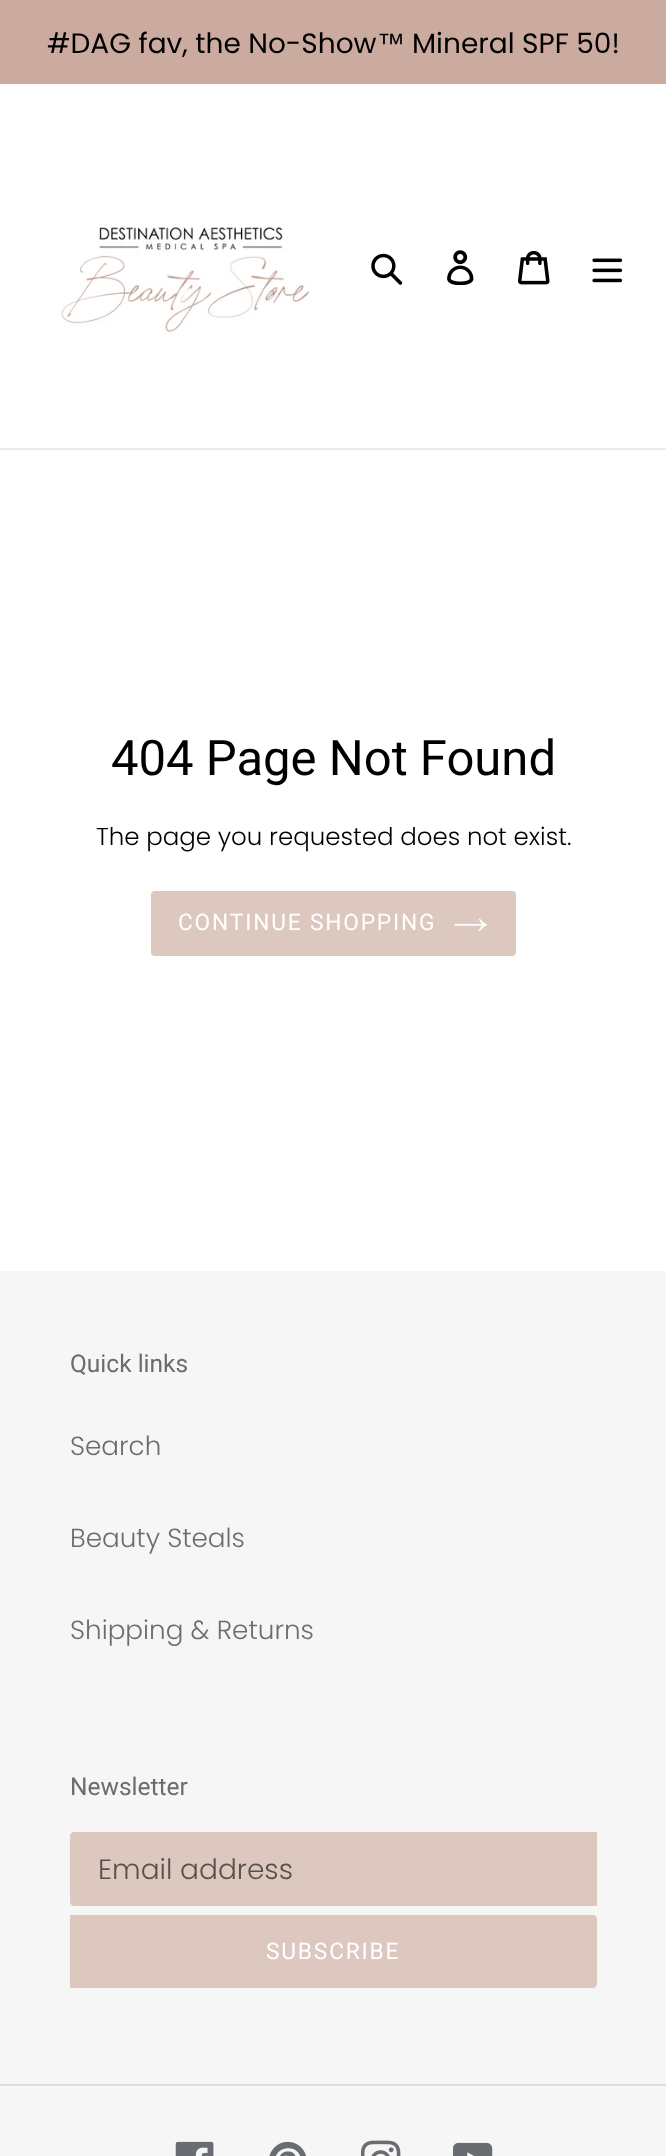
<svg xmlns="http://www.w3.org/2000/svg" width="666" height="2156">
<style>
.a{font:28px Poppins;fill:#000}
.b{font:28px Liberation Sans;fill:#000}
.c{font:49px Roboto;fill:#000}
.d{font:300 24.5px Poppins;fill:#000}
.e{font:22.75px Roboto;letter-spacing:1.8px;fill:#fff}
.f{font:24.5px Roboto;fill:#696d71}
.g{font:300 26.25px Poppins;fill:#696d71}
.h{font:300 28px Poppins;fill:#58504d}
</style>
<rect width="100%" height="100%" fill="#fff"/>
<path fill="#cbab9f" d="M0 0h666v84H0z"/>
<path fill="#ebebeb" d="M0 448h666v2H0z"/>
<image href="1.png" x="60" y="227" width="251" height="108"/>
<image href="2.png" x="371" y="253" width="32" height="32"/>
<image href="3.png" x="447" y="250" width="27" height="35"/>
<image href="4.png" x="518" y="250" width="32" height="35"/>
<image href="5.png" x="592" y="258" width="31" height="25"/>
<rect fill="#ddc8c0" x="151" y="891" width="365" height="65" rx="4"/>
<image href="6.png" x="454" y="918" width="33" height="13"/>
<path fill="#f6f6f6" d="M0 1271h666v885H0z"/>
<path fill="#ddc8c0" stroke="#ddc8c0" stroke-width="2" d="M74 1833h522v72h-522c-1.5 0-3-1.5-3-3v-66c0-1.5 1.5-3 3-3z"/>
<path fill="#ddc8c0" d="M70 1915h523c2 0 4 2 4 4v65c0 2-2 4-4 4h-523z"/>
<path fill="#ddd" d="M0 2084h666v2H0z"/>
<image href="7.png" x="175" y="2141" width="39" height="15"/>
<image href="8.png" x="269" y="2141" width="37" height="15"/>
<image href="9.png" x="361" y="2140" width="40" height="16"/>
<image href="10.png" x="453" y="2142" width="40" height="14"/>
<text class="a" x="47" y="53">#DAG fav, the No-Show</text>
<text class="b" x="377" y="53">™</text>
<text class="a" x="412" y="53">Mineral SPF 50!</text>
<text class="c" x="111" y="775">404 Page Not Found</text>
<text class="d" x="96" y="845">The page you requested does not exist.</text>
<text class="e" x="178" y="930">CONTINUE SHOPPING</text>
<text class="f" x="70" y="1372">Quick links</text>
<text class="g" x="70" y="1455">Search</text>
<text class="g" x="70" y="1547">Beauty Steals</text>
<text class="g" x="70" y="1639">Shipping &amp; Returns</text>
<text class="f" x="70" y="1795">Newsletter</text>
<text class="h" x="98" y="1879">Email address</text>
<text class="e" x="266" y="1959">SUBSCRIBE</text>
</svg>
